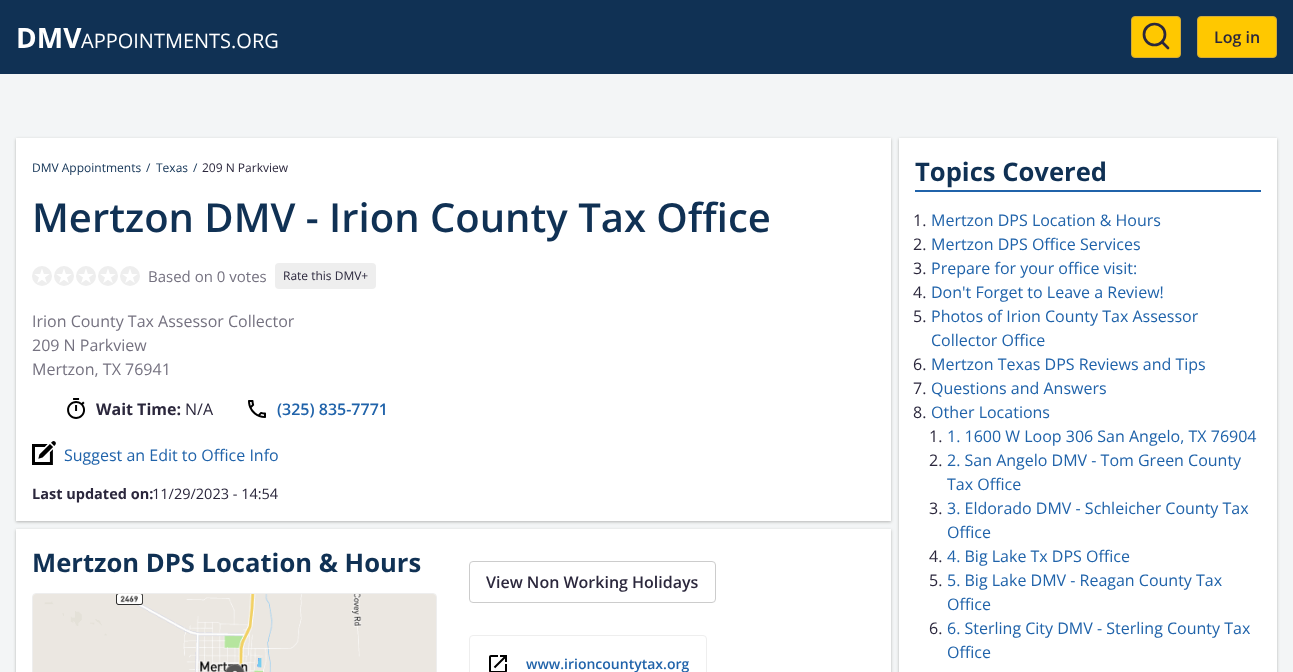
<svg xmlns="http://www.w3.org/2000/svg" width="1293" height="672">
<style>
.a{font:bold 28px Open Sans;fill:#fff}
.b{font:20px Open Sans;fill:#fff}
.c{font:600 16px Open Sans;fill:#2b273c}
.d{font:12px Open Sans;fill:#103154}
.e{font:12px Open Sans;fill:#2b273c}
.f{font:600 40px Open Sans;fill:#103154}
.g{font:20px DejaVu Sans;fill:#fff}
.h{font:15px Open Sans;fill:#757280}
.i{font:16px Open Sans;fill:#757280}
.j{font:bold 16px Open Sans;fill:#2b273c}
.k{font:16px Open Sans;fill:#2b273c}
.l{font:600 16px Open Sans;fill:#2063aa}
.m{font:16px Open Sans;fill:#2063aa}
.n{font:bold 14.5px Open Sans;fill:#2b273c}
.o{font:14.5px Open Sans;fill:#2b273c}
.p{font:bold 25.6px Open Sans;fill:#103154}
.q{font:600 14px Open Sans;fill:#2063aa}
</style>
<rect width="100%" height="100%" fill="#f3f5f6"/>
<path fill="#103154" d="M0 0h1293v74H0z"/>
<rect fill="#ffc800" stroke="#d2aa38" x="1131.5" y="16.5" width="49" height="41" rx="3.5"/>
<circle fill="none" stroke="#2b273c" stroke-width="2.7" cx="1154.5" cy="34.5" r="10.5"/>
<path fill="none" stroke="#2b273c" stroke-width="2.7" stroke-linecap="round" stroke-linejoin="round" d="M1168 48l-6-6"/>
<rect fill="#ffc800" stroke="#d2aa38" x="1197.5" y="16.5" width="79" height="41" rx="3.5"/>
<path fill="#25201f4d" filter="blur(1.5px)" d="M16 139h875v383H16z"/>
<path fill="#fff" d="M16 138h875v383H16z"/>
<circle fill="#eee" cx="42" cy="276" r="10"/>
<circle fill="#eee" cx="64" cy="276" r="10"/>
<circle fill="#eee" cx="86" cy="276" r="10"/>
<circle fill="#eee" cx="108" cy="276" r="10"/>
<circle fill="#eee" cx="130" cy="276" r="10"/>
<rect fill="#eee" x="275" y="263" width="101" height="26" rx="4"/>
<image href="1.png" x="67" y="398" width="18" height="21"/>
<image href="2.png" x="248" y="400" width="18" height="18"/>
<image href="3.png" x="32" y="441" width="24" height="24"/>
<path fill="#25201f4d" filter="blur(1.5px)" d="M16 530h875v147H16z"/>
<path fill="#fff" d="M16 529h875v143H16z"/>
<rect fill="none" stroke="#eee" x="32.5" y="593.5" width="404" height="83" rx="3.5"/>
<image href="4.png" x="33" y="594" width="403" height="78"/>
<rect fill="none" stroke="#ccc" x="469.5" y="561.5" width="246" height="41" rx="3.5"/>
<rect fill="none" stroke="#eee" x="469.5" y="635.5" width="237" height="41" rx="3.5"/>
<image href="5.png" x="489" y="655" width="18" height="17"/>
<path fill="#25201f4d" filter="blur(1.5px)" d="M899 139h378v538H899z"/>
<path fill="#fff" d="M899 138h378v534H899z"/>
<path fill="#2063aa" d="M915 190h346v2H915z"/>
<text class="a" x="16" y="48">DMV</text>
<text class="b" x="81" y="48">APPOINTMENTS.ORG</text>
<text class="c" x="1214" y="43">Log in</text>
<text class="d" x="32" y="172">DMV Appointments</text>
<text class="d" x="146" y="172">/</text>
<text class="d" x="156" y="172">Texas</text>
<text class="d" x="193" y="172">/</text>
<text class="e" x="202" y="172">209 N Parkview</text>
<text class="f" x="32" y="232">Mertzon DMV - Irion County Tax Office</text>
<text class="g" x="33" y="283">★</text>
<text class="g" x="55" y="283">★</text>
<text class="g" x="77" y="283">★</text>
<text class="g" x="99" y="283">★</text>
<text class="g" x="121" y="283">★</text>
<text class="h" x="148" y="282">Based on 0 votes</text>
<text class="e" x="283" y="280">Rate this DMV+</text>
<text class="i" x="32" y="327">Irion County Tax Assessor Collector</text>
<text class="i" x="32" y="351">209 N Parkview</text>
<text class="i" x="32" y="375">Mertzon, TX 76941</text>
<text class="j" x="96" y="415">Wait Time:</text>
<text class="k" x="185" y="415">N/A</text>
<text class="l" x="277" y="415">(325) 835-7771</text>
<text class="m" x="64" y="461">Suggest an Edit to Office Info</text>
<text class="n" x="32" y="499">Last updated on:</text>
<text class="o" x="152" y="499">11/29/2023 - 14:54</text>
<text class="p" x="32" y="572">Mertzon DPS Location &amp; Hours</text>
<text class="c" x="486" y="588">View Non Working Holidays</text>
<text class="q" x="526" y="669">www.irioncountytax.org</text>
<text class="p" x="915" y="181">Topics Covered</text>
<text class="k" x="913" y="226">1.</text>
<text class="m" x="931" y="226">Mertzon DPS Location &amp; Hours</text>
<text class="k" x="913" y="250">2.</text>
<text class="m" x="931" y="250">Mertzon DPS Office Services</text>
<text class="k" x="913" y="274">3.</text>
<text class="m" x="931" y="274">Prepare for your office visit:</text>
<text class="k" x="913" y="298">4.</text>
<text class="m" x="931" y="298">Don't Forget to Leave a Review!</text>
<text class="k" x="913" y="322">5.</text>
<text class="m" x="931" y="322">Photos of Irion County Tax Assessor</text>
<text class="m" x="931" y="346">Collector Office</text>
<text class="k" x="913" y="370">6.</text>
<text class="m" x="931" y="370">Mertzon Texas DPS Reviews and Tips</text>
<text class="k" x="913" y="394">7.</text>
<text class="m" x="931" y="394">Questions and Answers</text>
<text class="k" x="913" y="418">8.</text>
<text class="m" x="931" y="418">Other Locations</text>
<text class="k" x="929" y="442">1.</text>
<text class="m" x="947" y="442">1. 1600 W Loop 306 San Angelo, TX 76904</text>
<text class="k" x="929" y="466">2.</text>
<text class="m" x="947" y="466">2. San Angelo DMV - Tom Green County</text>
<text class="m" x="947" y="490">Tax Office</text>
<text class="k" x="929" y="514">3.</text>
<text class="m" x="947" y="514">3. Eldorado DMV - Schleicher County Tax</text>
<text class="m" x="947" y="538">Office</text>
<text class="k" x="929" y="562">4.</text>
<text class="m" x="947" y="562">4. Big Lake Tx DPS Office</text>
<text class="k" x="929" y="586">5.</text>
<text class="m" x="947" y="586">5. Big Lake DMV - Reagan County Tax</text>
<text class="m" x="947" y="610">Office</text>
<text class="k" x="929" y="634">6.</text>
<text class="m" x="947" y="634">6. Sterling City DMV - Sterling County Tax</text>
<text class="m" x="947" y="658">Office</text>
</svg>
